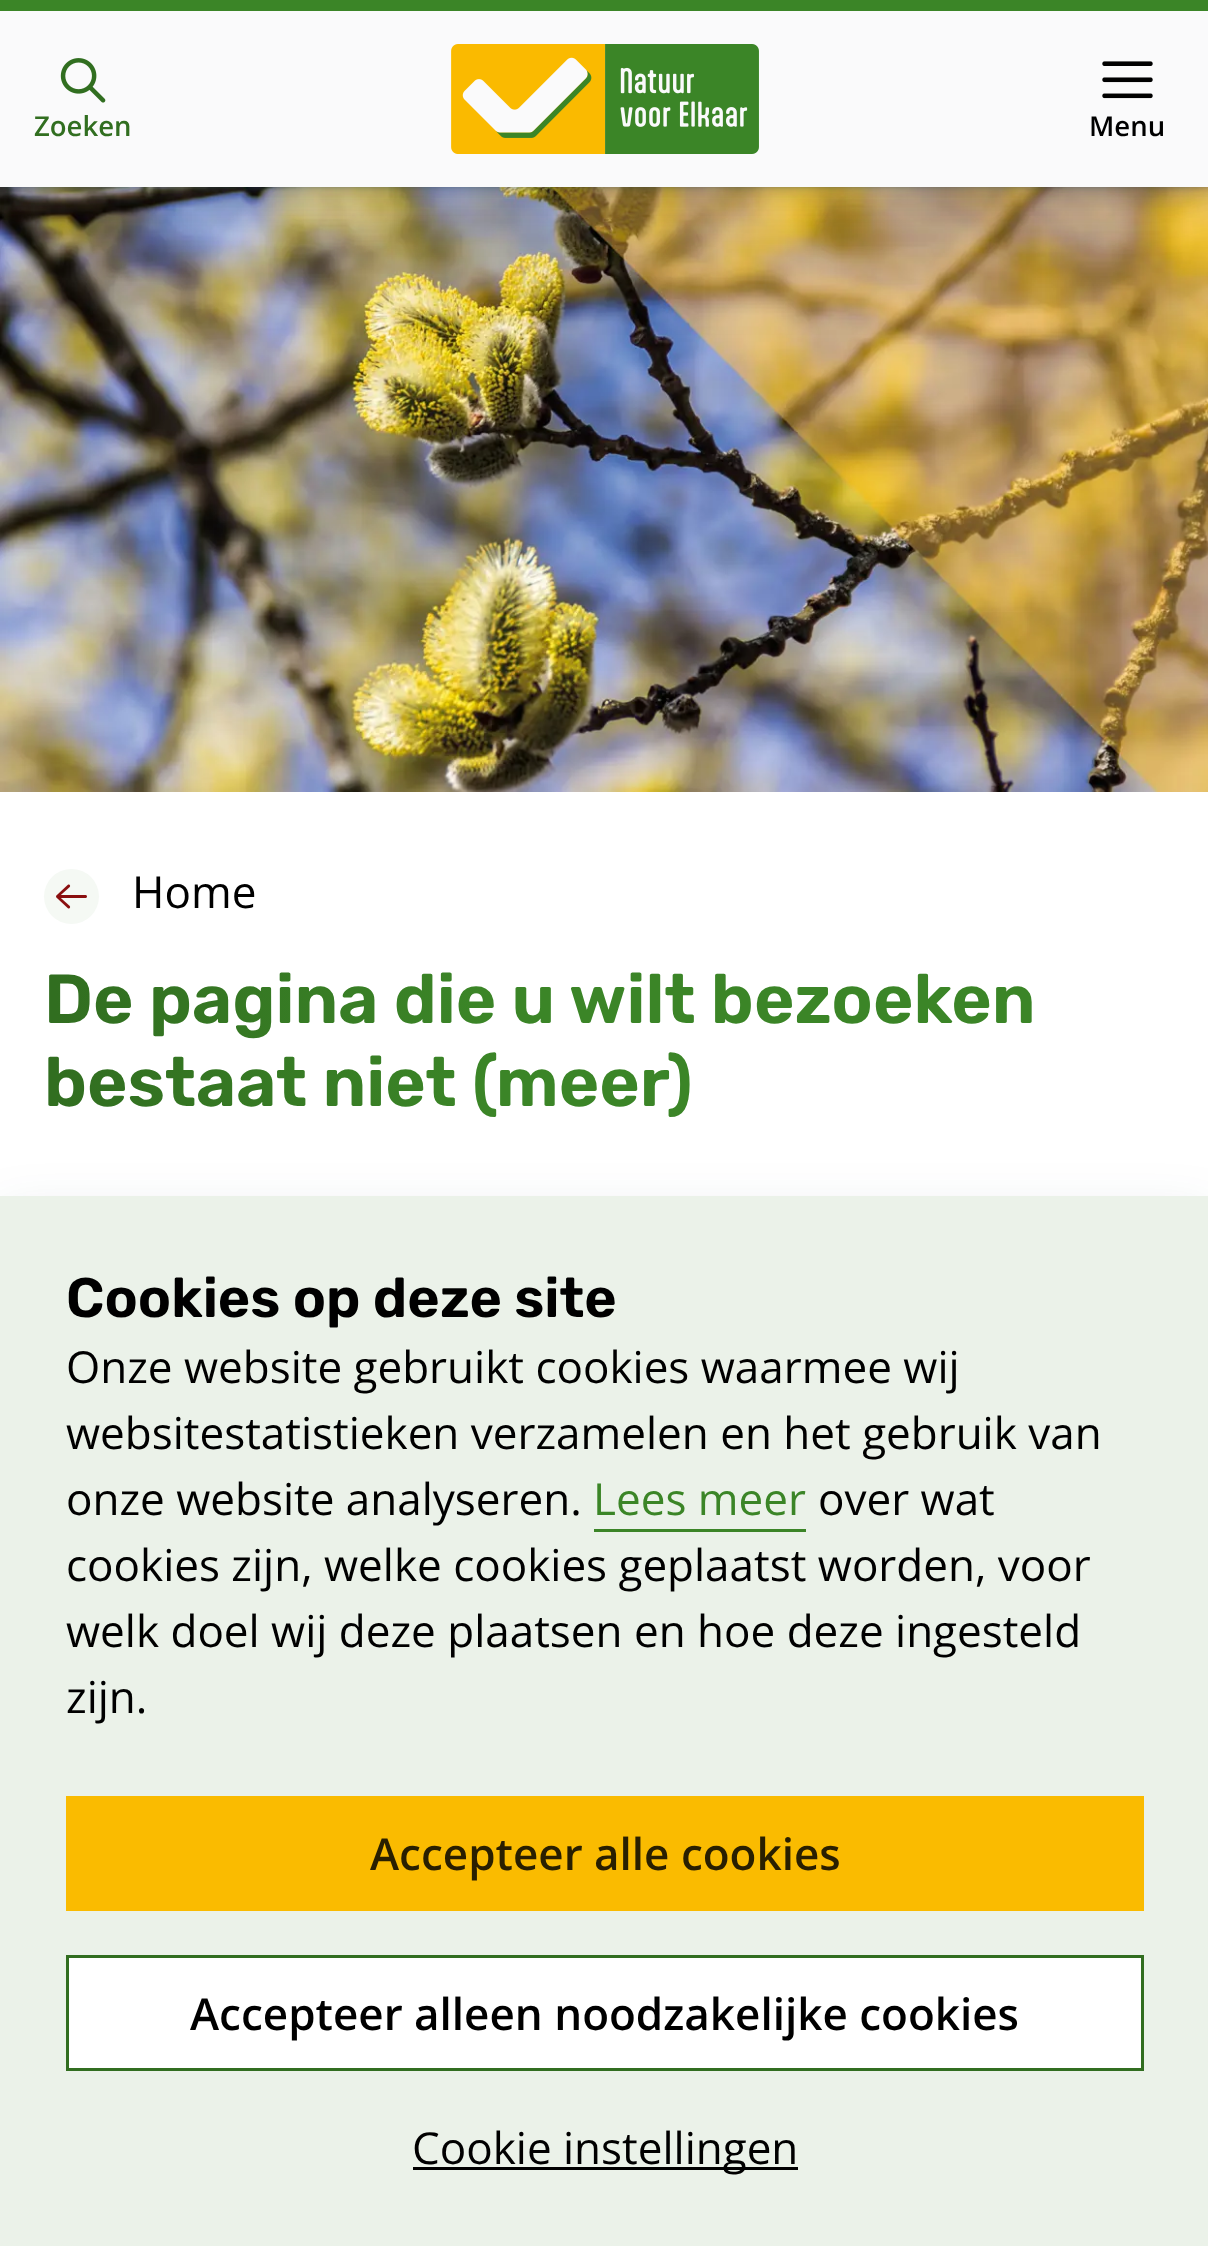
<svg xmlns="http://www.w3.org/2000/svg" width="1208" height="2246">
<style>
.a{font:600 27.5px Open Sans;fill:#316e20}
.b{font:600 27.5px Open Sans;fill:#000}
.c{font:44px Open Sans;fill:#000}
.d{font:600 69.25px Rubik;fill:url(#g1)}
.e{font:600 55.5px Rubik;fill:#000}
.f{font:44px Open Sans;fill:#3b8527}
.g{font:600 44px Open Sans;fill:#291f00}
.h{font:600 44px Open Sans;fill:#000}
</style>
<defs>
<linearGradient id="g1" gradientUnits="userSpaceOnUse" x1="44" y1="1040" x2="1166" y2="1040"><stop offset="0.01" stop-color="#316e20"/><stop offset="0.39" stop-color="#3b8527"/></linearGradient>
</defs>
<rect width="100%" height="100%" fill="#fff"/>
<image href="4.png" x="0" y="187" width="1208" height="605"/>
<path fill="#19364c14" filter="blur(99px)" d="M0 -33h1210v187H0z"/>
<path fill="#19364c26" filter="blur(41.5px)" d="M0 -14h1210v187H0z"/>
<path fill="#19364c29" filter="blur(22px)" d="M0 -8h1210v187H0z"/>
<path fill="#19364c2b" filter="blur(12.5px)" d="M0 -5h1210v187H0z"/>
<path fill="#19364c36" filter="blur(6.5px)" d="M0 -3h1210v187H0z"/>
<path fill="#19364c3d" filter="blur(2.5px)" d="M0 0h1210v187H0z"/>
<path fill="#3b8527" d="M0 0h1208v11H0z"/>
<path fill="#fafafb" d="M0 11h1208v176H0z"/>
<image href="1.png" x="451" y="44" width="308" height="110"/>
<image href="2.png" x="60" y="58" width="46" height="45"/>
<image href="3.png" x="1102" y="61" width="51" height="38"/>
<circle fill="#f5f9f4" cx="71.5" cy="896.5" r="27.5"/>
<image href="5.png" x="56" y="884" width="31" height="25"/>
<path fill="#19364c21" filter="blur(27.5px)" d="M0 1218h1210v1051H0z"/>
<path fill="#ebf2e9" d="M0 1196h1208v1050H0z"/>
<path fill="#3b8527" d="M594 1529h212v3H594z"/>
<path fill="#fabb00" d="M66 1796h1078v115H66z"/>
<path fill="#fff" stroke="#316e20" stroke-width="3" d="M67.5 1956.5h1075v113H67.5z"/>
<path fill="#000" d="M413 2167h385v3H413z"/>
<text class="a" x="34" y="136">Zoeken</text>
<text class="b" x="1089" y="136">Menu</text>
<text class="c" x="132" y="908">Home</text>
<text class="d" x="44" y="1023">De pagina die u wilt bezoeken</text>
<text class="d" x="44" y="1106">bestaat niet (meer)</text>
<text class="e" x="66" y="1317">Cookies op deze site</text>
<text class="c" x="66" y="1383">Onze website gebruikt cookies waarmee wij</text>
<text class="c" x="66" y="1449">websitestatistieken verzamelen en het gebruik van</text>
<text class="c" x="66" y="1515">onze website analyseren.</text>
<text class="f" x="593" y="1515">Lees meer</text>
<text class="c" x="818" y="1515">over wat</text>
<text class="c" x="66" y="1581">cookies zijn, welke cookies geplaatst worden, voor</text>
<text class="c" x="66" y="1647">welk doel wij deze plaatsen en hoe deze ingesteld</text>
<text class="c" x="66" y="1713">zijn.</text>
<text class="g" x="370" y="1870">Accepteer alle cookies</text>
<text class="h" x="190" y="2030">Accepteer alleen noodzakelijke cookies</text>
<text class="c" x="412" y="2164">Cookie instellingen</text>
</svg>
